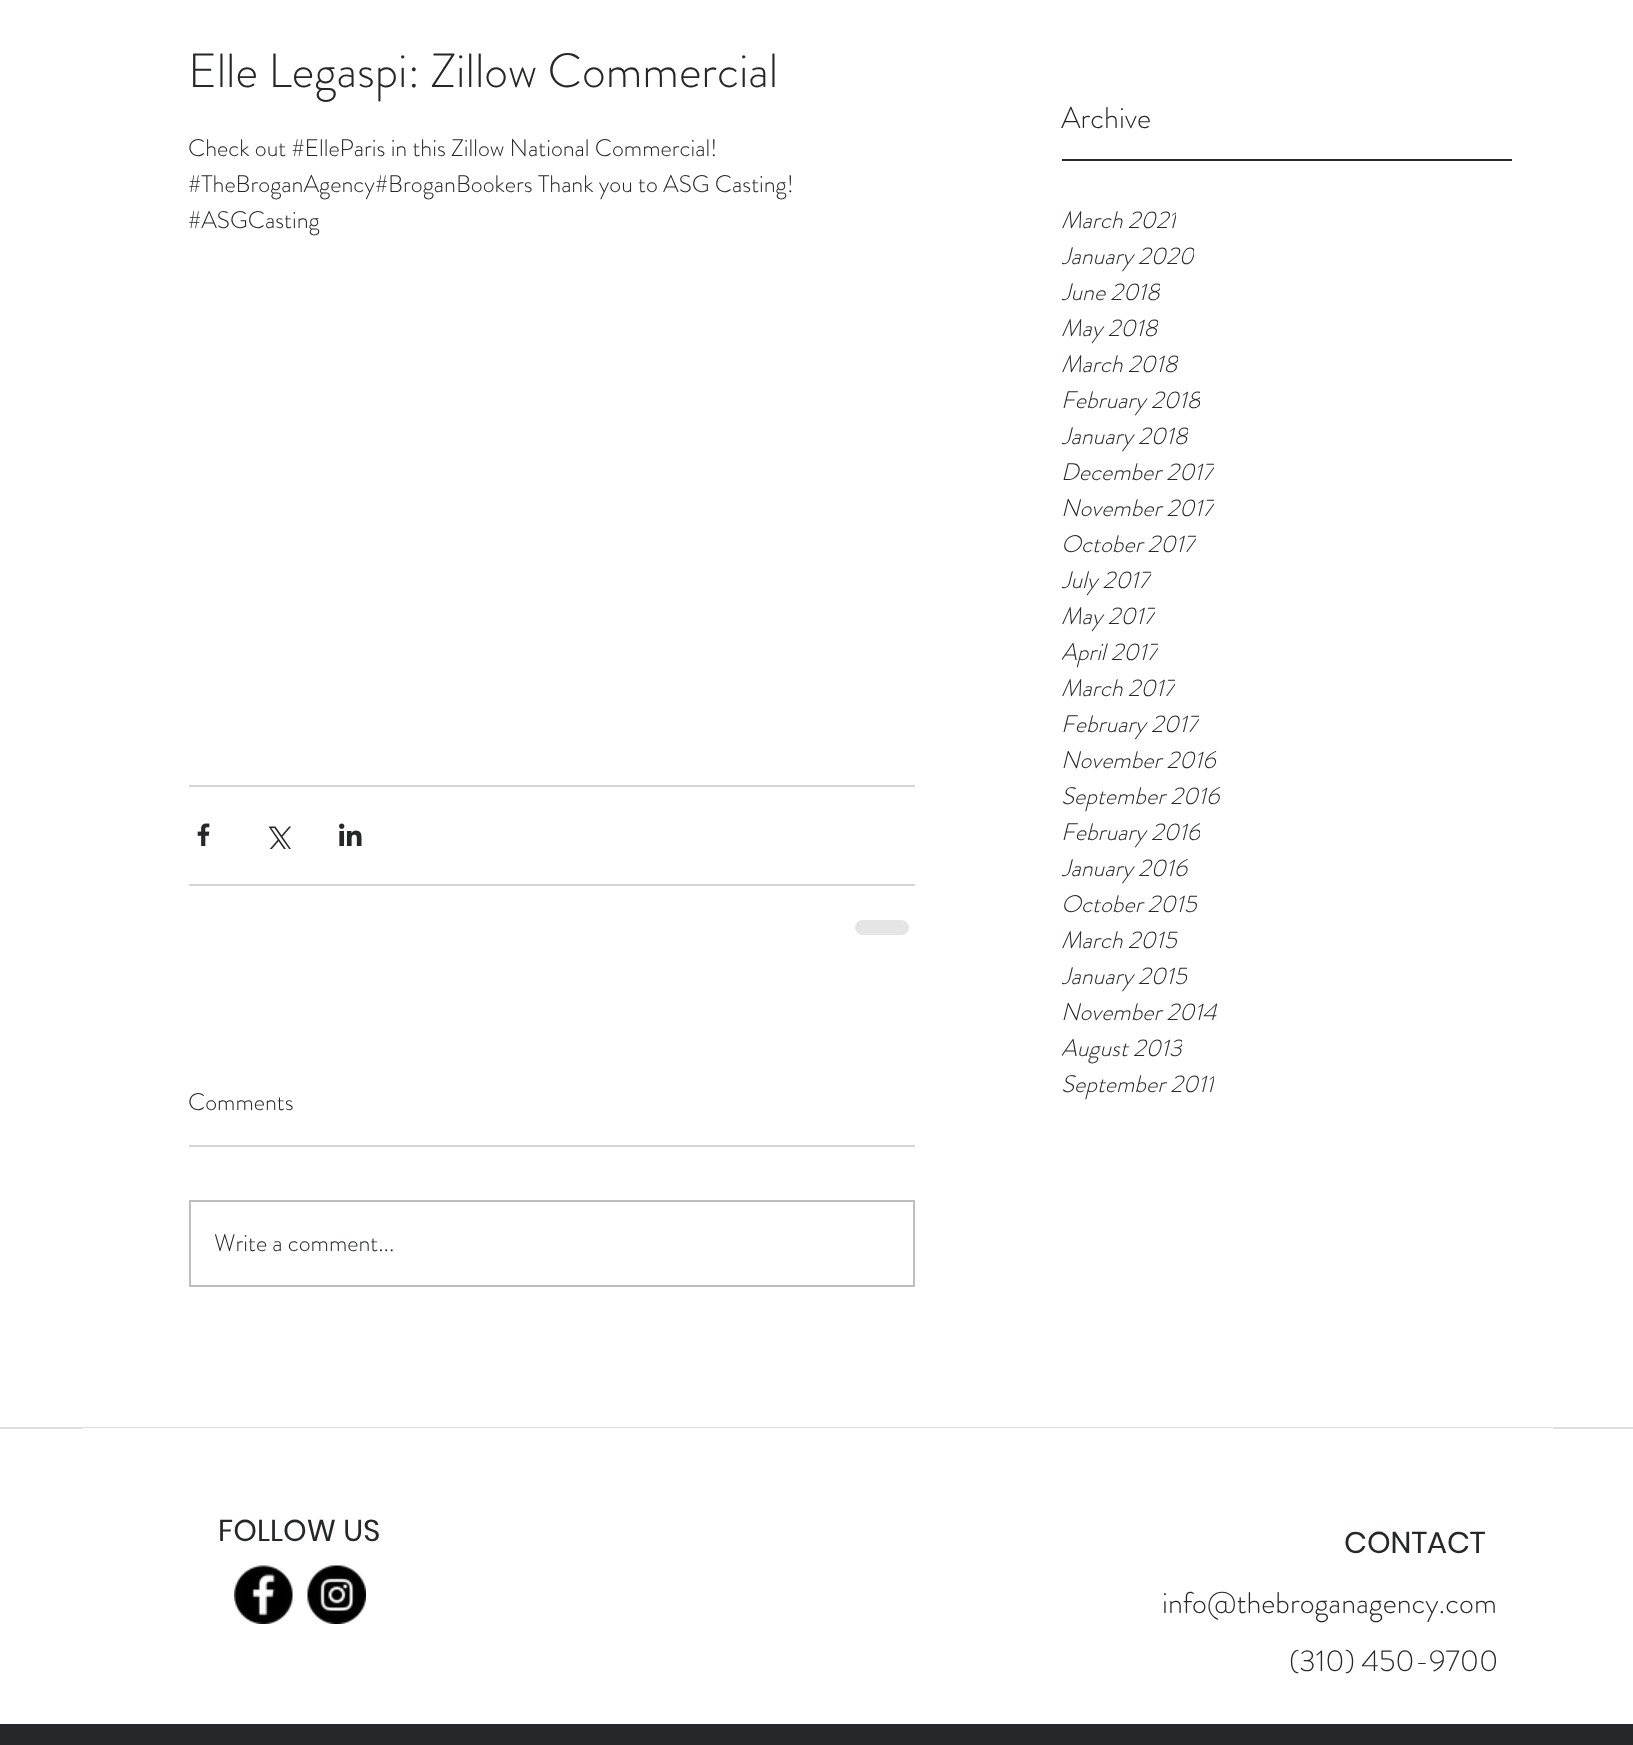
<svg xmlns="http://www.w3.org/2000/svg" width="1633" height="1745">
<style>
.a{font:300 48px 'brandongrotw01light';fill:#252728}
.b{font:300 24px 'brandongrotw01light';fill:#252728}
.c{font:300 30px 'brandongrotw01light';fill:#252728}
.d{font:italic 300 24px 'brandongrotw01light';fill:#252728}
.e{font:30px Poppins;fill:#252728}
</style>
<defs>
<clipPath id="clip1"><path d="M1062 203h114v36H1062z"/></clipPath>
<clipPath id="clip2"><path d="M1062 239h132v36H1062z"/></clipPath>
<clipPath id="clip3"><path d="M1062 275h98v36H1062z"/></clipPath>
<clipPath id="clip4"><path d="M1062 311h96v36H1062z"/></clipPath>
<clipPath id="clip5"><path d="M1062 347h116v36H1062z"/></clipPath>
<clipPath id="clip6"><path d="M1062 383h138v36H1062z"/></clipPath>
<clipPath id="clip7"><path d="M1062 419h126v36H1062z"/></clipPath>
<clipPath id="clip8"><path d="M1062 455h152v36H1062z"/></clipPath>
<clipPath id="clip9"><path d="M1062 491h152v36H1062z"/></clipPath>
<clipPath id="clip10"><path d="M1062 527h134v36H1062z"/></clipPath>
<clipPath id="clip11"><path d="M1062 563h89v36H1062z"/></clipPath>
<clipPath id="clip12"><path d="M1062 599h93v36H1062z"/></clipPath>
<clipPath id="clip13"><path d="M1062 635h96v36H1062z"/></clipPath>
<clipPath id="clip14"><path d="M1062 671h113v36H1062z"/></clipPath>
<clipPath id="clip15"><path d="M1062 707h137v36H1062z"/></clipPath>
<clipPath id="clip16"><path d="M1062 815h138v36H1062z"/></clipPath>
<clipPath id="clip17"><path d="M1062 851h126v36H1062z"/></clipPath>
<clipPath id="clip18"><path d="M1062 887h135v36H1062z"/></clipPath>
<clipPath id="clip19"><path d="M1062 959h125v36H1062z"/></clipPath>
<clipPath id="clip20"><path d="M1062 1031h120v36H1062z"/></clipPath>
<clipPath id="clip21"><path d="M1062 1067h152v36H1062z"/></clipPath>
</defs>
<rect width="100%" height="100%" fill="#fff"/>
<path fill="#d3d4d4" d="M189 785h726v2H189z"/>
<image href="1.png" x="197" y="823" width="13" height="23"/>
<image href="2.png" x="268" y="826" width="23" height="23"/>
<image href="3.png" x="339" y="823" width="23" height="23"/>
<path fill="#d3d4d4" d="M189 884h726v2H189z"/>
<rect fill="#e5e5e5" x="855" y="920" width="54" height="15" rx="7.5"/>
<path fill="#d3d4d4" d="M189 1145h726v2H189z"/>
<path fill="none" stroke="#bebebf" stroke-width="2" d="M190 1201h724v85H190z"/>
<path fill="#252728" d="M1062 159h450v2H1062z"/>
<path fill="#dedfdf" d="M0 1427h1633v2H0z"/>
<path fill="#fff" d="M83 1428h1470v1H83z"/>
<image href="4.png" x="234" y="1565" width="59" height="59"/>
<image href="5.png" x="307" y="1565" width="59" height="59"/>
<path fill="#252728" d="M0 1724h1633v21H0z"/>
<text class="a" x="188" y="87">Elle Legaspi: Zillow Commercial</text>
<text class="b" x="188" y="156">Check out #ElleParis in this Zillow National Commercial!</text>
<text class="b" x="188" y="192">#TheBroganAgency#BroganBookers Thank you to ASG Casting!</text>
<text class="b" x="188" y="228">#ASGCasting</text>
<text class="b" x="188" y="1110">Comments</text>
<text class="b" x="214" y="1251">Write a comment...</text>
<text class="c" x="1061" y="128">Archive</text>
<g clip-path="url(#clip1)">
<text class="d" x="1061" y="228">March 2021</text>
</g>
<g clip-path="url(#clip2)">
<text class="d" x="1061" y="264">January 2020</text>
</g>
<g clip-path="url(#clip3)">
<text class="d" x="1061" y="300">June 2018</text>
</g>
<g clip-path="url(#clip4)">
<text class="d" x="1061" y="336">May 2018</text>
</g>
<g clip-path="url(#clip5)">
<text class="d" x="1061" y="372">March 2018</text>
</g>
<g clip-path="url(#clip6)">
<text class="d" x="1061" y="408">February 2018</text>
</g>
<g clip-path="url(#clip7)">
<text class="d" x="1061" y="444">January 2018</text>
</g>
<g clip-path="url(#clip8)">
<text class="d" x="1061" y="480">December 2017</text>
</g>
<g clip-path="url(#clip9)">
<text class="d" x="1061" y="516">November 2017</text>
</g>
<g clip-path="url(#clip10)">
<text class="d" x="1061" y="552">October 2017</text>
</g>
<g clip-path="url(#clip11)">
<text class="d" x="1061" y="588">July 2017</text>
</g>
<g clip-path="url(#clip12)">
<text class="d" x="1061" y="624">May 2017</text>
</g>
<g clip-path="url(#clip13)">
<text class="d" x="1061" y="660">April 2017</text>
</g>
<g clip-path="url(#clip14)">
<text class="d" x="1061" y="696">March 2017</text>
</g>
<g clip-path="url(#clip15)">
<text class="d" x="1061" y="732">February 2017</text>
</g>
<text class="d" x="1061" y="768">November 2016</text>
<text class="d" x="1061" y="804">September 2016</text>
<g clip-path="url(#clip16)">
<text class="d" x="1061" y="840">February 2016</text>
</g>
<g clip-path="url(#clip17)">
<text class="d" x="1061" y="876">January 2016</text>
</g>
<g clip-path="url(#clip18)">
<text class="d" x="1061" y="912">October 2015</text>
</g>
<text class="d" x="1061" y="948">March 2015</text>
<g clip-path="url(#clip19)">
<text class="d" x="1061" y="984">January 2015</text>
</g>
<text class="d" x="1061" y="1020">November 2014</text>
<g clip-path="url(#clip20)">
<text class="d" x="1061" y="1056">August 2013</text>
</g>
<g clip-path="url(#clip21)">
<text class="d" x="1061" y="1092">September 2011</text>
</g>
<text class="e" x="218" y="1541">FOLLOW US</text>
<text class="e" x="1344" y="1553">CONTACT</text>
<text class="c" x="1162" y="1613">info@thebroganagency.com</text>
<text class="c" x="1289" y="1671">(310) 450-9700</text>
</svg>
